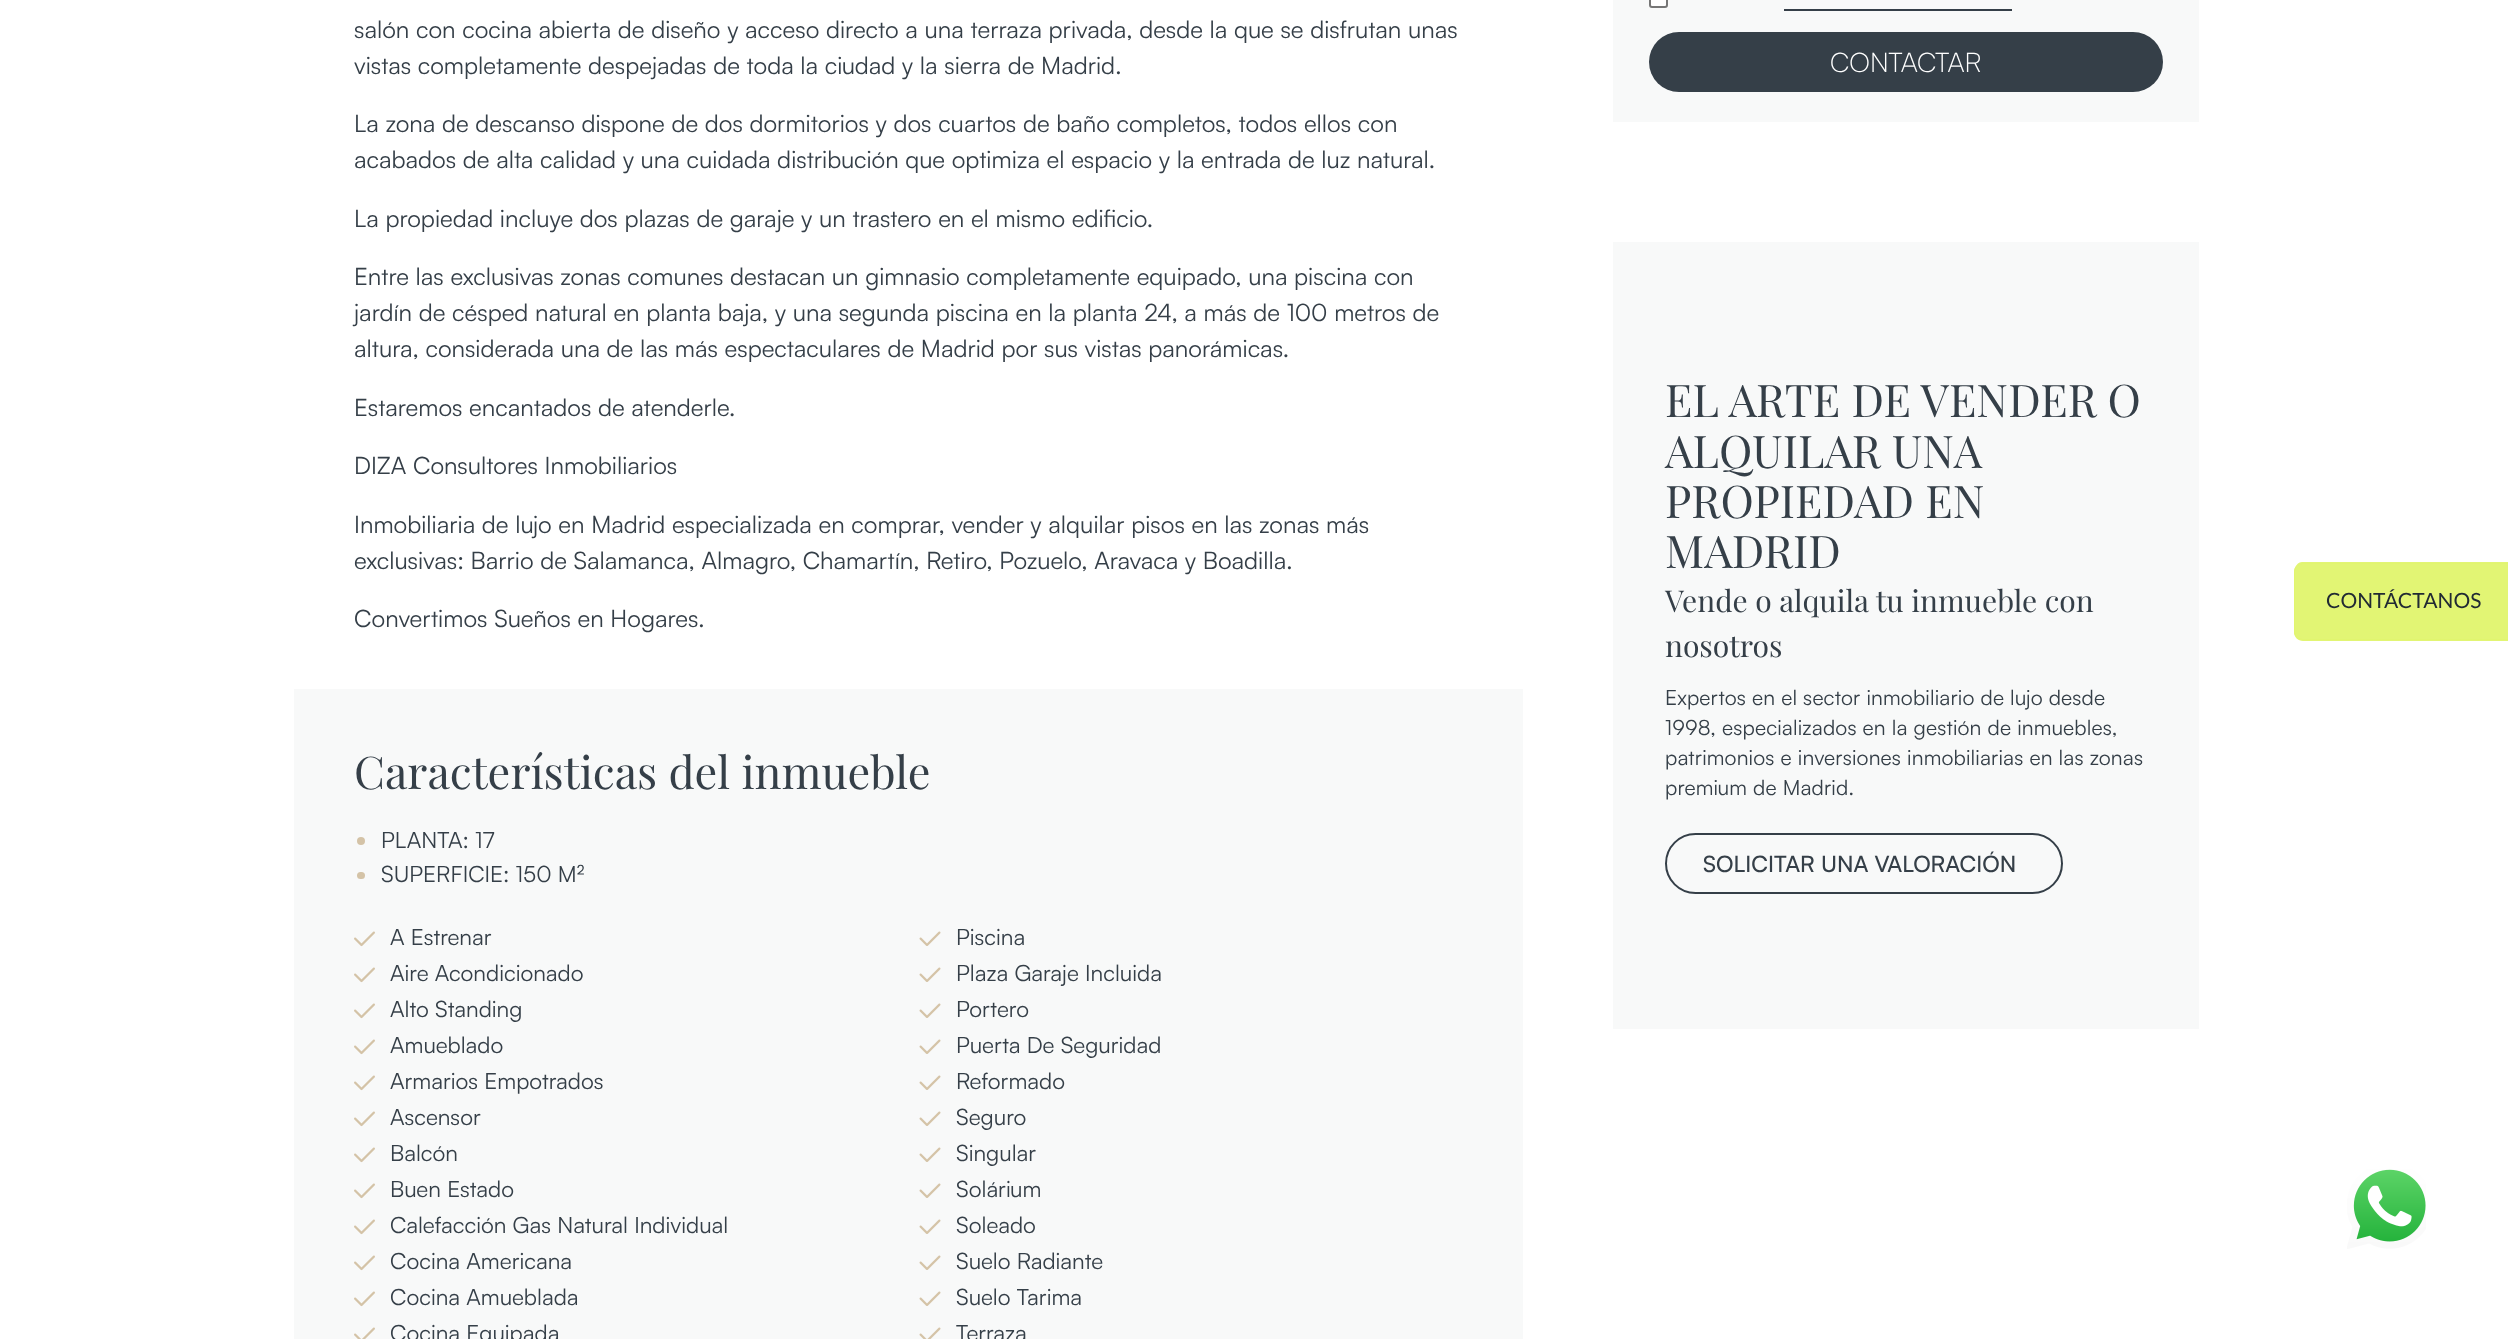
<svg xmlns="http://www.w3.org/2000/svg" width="2508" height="1339">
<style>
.a{font:24px Satoshi;fill:#353f48}
.b{font:45px Playfair Display;fill:#353f48}
.c{font:22.5px Satoshi;fill:#353f48}
.d{font:300 27px Satoshi;fill:#fff}
.e{font:30px Playfair Display;fill:#353f48}
.f{font:21px Satoshi;letter-spacing:0.15px;fill:#353f48}
.g{font:500 22.5px Satoshi;fill:#353f48}
.h{font:21px Lato;fill:#212a33}
</style>
<rect width="100%" height="100%" fill="#fff"/>
<path fill="#f8f9f9" d="M294 689h1229v650H294z"/>
<circle fill="#d4c3a7" cx="361" cy="841" r="4"/>
<rect fill="#d4c3a7" x="357" y="872" width="8" height="7" rx="3.5"/>
<image href="1.png" x="354" y="931" width="21" height="16"/>
<image href="2.png" x="919" y="931" width="22" height="15"/>
<image href="1.png" x="354" y="967" width="21" height="16"/>
<image href="2.png" x="919" y="967" width="22" height="15"/>
<image href="1.png" x="354" y="1003" width="21" height="16"/>
<image href="2.png" x="919" y="1003" width="22" height="15"/>
<image href="1.png" x="354" y="1039" width="21" height="16"/>
<image href="2.png" x="919" y="1039" width="22" height="15"/>
<image href="1.png" x="354" y="1075" width="21" height="16"/>
<image href="2.png" x="919" y="1075" width="22" height="15"/>
<image href="1.png" x="354" y="1111" width="21" height="16"/>
<image href="2.png" x="919" y="1111" width="22" height="15"/>
<image href="1.png" x="354" y="1147" width="21" height="16"/>
<image href="2.png" x="919" y="1147" width="22" height="15"/>
<image href="1.png" x="354" y="1183" width="21" height="16"/>
<image href="2.png" x="919" y="1183" width="22" height="15"/>
<image href="1.png" x="354" y="1219" width="21" height="16"/>
<image href="2.png" x="919" y="1219" width="22" height="15"/>
<image href="1.png" x="354" y="1255" width="21" height="16"/>
<image href="2.png" x="919" y="1255" width="22" height="15"/>
<image href="1.png" x="354" y="1291" width="21" height="16"/>
<image href="2.png" x="919" y="1291" width="22" height="15"/>
<image href="3.png" x="354" y="1327" width="21" height="12"/>
<image href="4.png" x="919" y="1327" width="22" height="12"/>
<path fill="#f8f9f9" d="M1613 0h586v122H1613z"/>
<rect fill="#fff" stroke="#767676" stroke-width="2" x="1650" y="-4" width="17" height="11" rx="2"/>
<path fill="#353f48" d="M1784 9h228v2H1784z"/>
<rect fill="#353f48" x="1649" y="32" width="514" height="60" rx="30"/>
<path fill="#f8f9f9" d="M1613 242h586v787H1613z"/>
<rect fill="none" stroke="#353f48" stroke-width="2" x="1666" y="834" width="396" height="59" rx="29.5"/>
<path fill="#e2f574" d="M2303 563h205v78h-205c-5 0-9-4-9-9v-60c0-5 4-9 9-9z"/>
<path fill="#e1f56ef5" fill-rule="evenodd" d="M2302 562h206v78h-206c-4 0-8-4-8-8v-60c0-5 4-10 8-10zm0 2h206v75h-206c-4 0-7-3-7-7v-60c0-5 3-8 7-8z"/>
<image href="5.png" x="2347" y="1169" width="79" height="80"/>
<text class="a" x="354" y="38">salón con cocina abierta de diseño y acceso directo a una terraza privada, desde la que se disfrutan unas</text>
<text class="a" x="354" y="74">vistas completamente despejadas de toda la ciudad y la sierra de Madrid.</text>
<text class="a" x="354" y="132">La zona de descanso dispone de dos dormitorios y dos cuartos de baño completos, todos ellos con</text>
<text class="a" x="354" y="168">acabados de alta calidad y una cuidada distribución que optimiza el espacio y la entrada de luz natural.</text>
<text class="a" x="354" y="227">La propiedad incluye dos plazas de garaje y un trastero en el mismo edificio.</text>
<text class="a" x="354" y="285">Entre las exclusivas zonas comunes destacan un gimnasio completamente equipado, una piscina con</text>
<text class="a" x="354" y="321">jardín de césped natural en planta baja, y una segunda piscina en la planta 24, a más de 100 metros de</text>
<text class="a" x="354" y="357">altura, considerada una de las más espectaculares de Madrid por sus vistas panorámicas.</text>
<text class="a" x="354" y="416">Estaremos encantados de atenderle.</text>
<text class="a" x="354" y="474">DIZA Consultores Inmobiliarios</text>
<text class="a" x="354" y="533">Inmobiliaria de lujo en Madrid especializada en comprar, vender y alquilar pisos en las zonas más</text>
<text class="a" x="354" y="569">exclusivas: Barrio de Salamanca, Almagro, Chamartín, Retiro, Pozuelo, Aravaca y Boadilla.</text>
<text class="a" x="354" y="627">Convertimos Sueños en Hogares.</text>
<text class="b" x="354" y="789">Características del inmueble</text>
<text class="c" x="381" y="848">PLANTA: 17</text>
<text class="c" x="381" y="882">SUPERFICIE: 150 M²</text>
<text class="c" x="390" y="945">A Estrenar</text>
<text class="c" x="956" y="945">Piscina</text>
<text class="c" x="390" y="981">Aire Acondicionado</text>
<text class="c" x="956" y="981">Plaza Garaje Incluida</text>
<text class="c" x="390" y="1017">Alto Standing</text>
<text class="c" x="956" y="1017">Portero</text>
<text class="c" x="390" y="1053">Amueblado</text>
<text class="c" x="956" y="1053">Puerta De Seguridad</text>
<text class="c" x="390" y="1089">Armarios Empotrados</text>
<text class="c" x="956" y="1089">Reformado</text>
<text class="c" x="390" y="1125">Ascensor</text>
<text class="c" x="956" y="1125">Seguro</text>
<text class="c" x="390" y="1161">Balcón</text>
<text class="c" x="956" y="1161">Singular</text>
<text class="c" x="390" y="1197">Buen Estado</text>
<text class="c" x="956" y="1197">Solárium</text>
<text class="c" x="390" y="1233">Calefacción Gas Natural Individual</text>
<text class="c" x="956" y="1233">Soleado</text>
<text class="c" x="390" y="1269">Cocina Americana</text>
<text class="c" x="956" y="1269">Suelo Radiante</text>
<text class="c" x="390" y="1305">Cocina Amueblada</text>
<text class="c" x="956" y="1305">Suelo Tarima</text>
<text class="c" x="390" y="1341">Cocina Equipada</text>
<text class="c" x="956" y="1341">Terraza</text>
<text class="d" x="1830" y="72">CONTACTAR</text>
<text class="b" x="1665" y="417">EL ARTE DE VENDER O</text>
<text class="b" x="1665" y="468">ALQUILAR UNA</text>
<text class="b" x="1665" y="518">PROPIEDAD EN</text>
<text class="b" x="1665" y="568">MADRID</text>
<text class="e" x="1665" y="612">Vende o alquila tu inmueble con</text>
<text class="e" x="1665" y="657">nosotros</text>
<text class="f" x="1665" y="705">Expertos en el sector inmobiliario de lujo desde</text>
<text class="f" x="1665" y="735">1998, especializados en la gestión de inmuebles,</text>
<text class="f" x="1665" y="765">patrimonios e inversiones inmobiliarias en las zonas</text>
<text class="f" x="1665" y="795">premium de Madrid.</text>
<text class="g" x="1703" y="872">SOLICITAR UNA VALORACIÓN</text>
<text class="h" x="2326" y="608">CONTÁCTANOS</text>
</svg>
